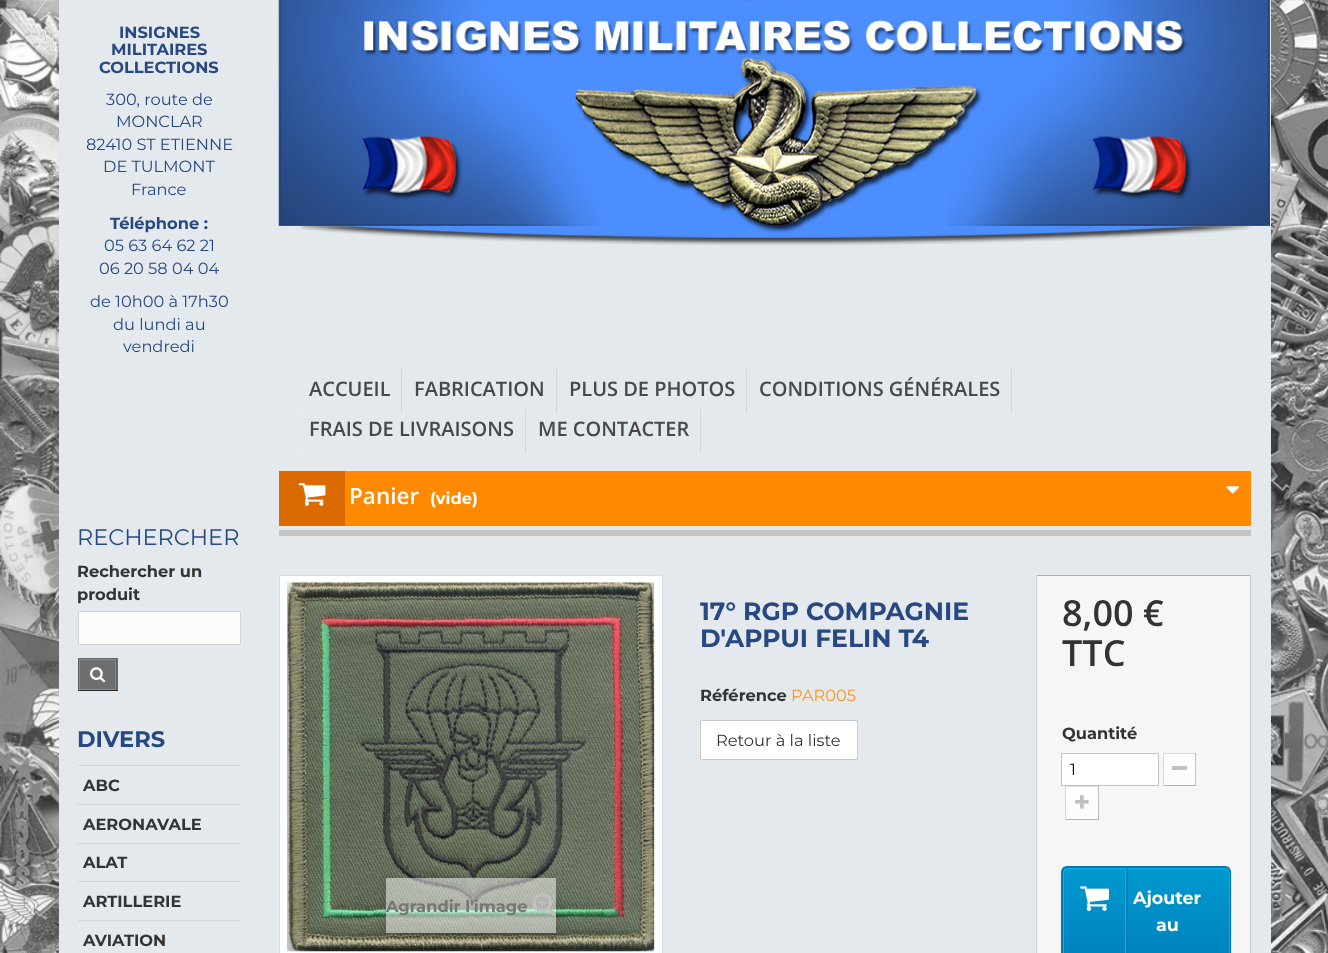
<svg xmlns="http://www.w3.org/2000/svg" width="1328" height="953">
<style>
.a{font:bold 16.25px Montserrat;fill:#274881}
.b{font:16.25px Montserrat;fill:#274881}
.c{font:600 20px Open Sans;fill:#484848}
.d{font:600 22.5px Open Sans;fill:#fff}
.e{font:bold 16.25px Montserrat;fill:#fff}
.f{font:22.5px Montserrat;fill:#274881}
.g{font:bold 16.25px Montserrat;fill:#333}
.h{font:bold 22.5px Montserrat;fill:#274881}
.i{font:bold 25px Montserrat;fill:#274881}
.j{font:16.25px Montserrat;fill:#fb9620}
.k{font:16.25px Montserrat;fill:#333}
.l{font:600 36px Open Sans;fill:#333}
.m{font:16.25px Montserrat;fill:#000}
.n{font:bold 17.5px Montserrat;fill:#fff}
.o{font:bold 16.25px Montserrat;fill:#777676}
</style>
<defs>
<linearGradient id="g1" gradientUnits="userSpaceOnUse" x1="1179" y1="755" x2="1179" y2="784"><stop offset="0" stop-color="#fff"/><stop offset="1" stop-color="#fbfbfb"/></linearGradient>
<linearGradient id="g2" gradientUnits="userSpaceOnUse" x1="1082" y1="789" x2="1082" y2="818"><stop offset="0" stop-color="#fff"/><stop offset="1" stop-color="#fbfbfb"/></linearGradient>
<clipPath id="clip1"><rect x="1061" y="866" width="170" height="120" rx="6"/></clipPath>
<linearGradient id="g3" gradientUnits="userSpaceOnUse" x1="1146" y1="750" x2="1146" y2="868"><stop offset="0" stop-color="#009ad0"/><stop offset="1" stop-color="#007ab7"/></linearGradient>
<linearGradient id="g4" gradientUnits="userSpaceOnUse" x1="1146" y1="868" x2="1146" y2="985"><stop offset="0" stop-color="#009ad0"/><stop offset="1" stop-color="#007ab7"/></linearGradient>
<clipPath id="clip2"><path d="M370 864h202v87h-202zm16 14h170v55h-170z" clip-rule="evenodd"/></clipPath>
</defs>
<rect width="100%" height="100%" fill="#fff"/>
<image href="1.png" x="0" y="0" width="1328" height="953"/>
<path fill="#e3e9ed" d="M59 0h1212v526H59z"/>
<image href="2.png" x="278" y="0" width="992" height="246"/>
<path fill="#e9e9e9" d="M298 449h935v4H298z"/>
<path fill="#d6d4d4" d="M401 369h1v44H401z"/>
<path fill="#e9e9e9" d="M298 409h103v4H298z"/>
<path fill="#d6d4d4" d="M556 369h1v44H556z"/>
<path fill="#e9e9e9" d="M403 409h153v4H403z"/>
<path fill="#d6d4d4" d="M746 369h1v44H746z"/>
<path fill="#e9e9e9" d="M558 409h188v4H558z"/>
<path fill="#d6d4d4" d="M1011 369h1v44H1011z"/>
<path fill="#e9e9e9" d="M748 409h263v4H748z"/>
<path fill="#d6d4d4" d="M525 409h1v44H525z"/>
<path fill="#d6d4d4" d="M700 409h1v44H700z"/>
<path fill="#ff8901" d="M345 471h906v55H345z"/>
<path fill="#db6a00" d="M279 471h66v55H279z"/>
<image href="3.png" x="298" y="483" width="28" height="23"/>
<image href="4.png" x="1226" y="486" width="13" height="8"/>
<path fill="#e3e9ed" d="M59 526h1212v427H59z"/>
<path fill="#fbfbfb" stroke="#d6d4d4" d="M78.5 611.5h162v33H78.5z"/>
<path fill="#6f6f6f" d="M80 659h38v31H80z"/>
<path fill="#666" d="M78 658h40v1H78z"/>
<path fill="#5f5f5f" d="M116 658h1v33H116z"/>
<path fill="#292929" d="M78 690h40v1H78z"/>
<path fill="#5f5f5f" d="M78 658h1v33H78z"/>
<path fill="none" stroke="#8b8a8a" d="M79.5 659.5h36v30H79.5z"/>
<image href="5.png" x="90" y="667" width="16" height="16"/>
<path fill="#d6d4d4" d="M78 765h163v1H78z"/>
<path fill="#d6d4d4" d="M78 804h163v1H78z"/>
<path fill="#d6d4d4" d="M78 843h163v1H78z"/>
<path fill="#d6d4d4" d="M78 881h163v1H78z"/>
<path fill="#d6d4d4" d="M78 920h163v1H78z"/>
<path fill="#c4c4c4" d="M279 530h972v6H279z"/>
<path fill="#fff" stroke="#ccc" d="M700.5 720.5h157v39H700.5z"/>
<path fill="#f6f6f6" d="M1037 576h213v377H1037z"/>
<path fill="#b0afaf" d="M1036 575h215v1H1036z"/>
<path fill="#d2d0d0" d="M1250 575h1v378H1250z"/>
<path fill="#d2d0d0" d="M1036 575h1v378H1036z"/>
<path fill="#fff" stroke="#bdc2c9" d="M1061.5 753.5h97v32H1061.5z"/>
<path fill="#dedcdc" d="M1163 753h33v1H1163z"/>
<path fill="#c1bfbf" d="M1195 753h1v33H1195z"/>
<path fill="#b5b4b4" d="M1163 785h33v1H1163z"/>
<path fill="#dad8d8" d="M1163 753h1v33H1163z"/>
<path fill="url(#g1)" d="M1165 755h29v29H1165z"/>
<path fill="none" stroke="#fff" d="M1164.5 754.5h30v30H1164.5z"/>
<path fill="#c0c0c0" d="M1172 766h15v4H1172z"/>
<path fill="#fff" d="M1066 787h32v1H1066z"/>
<path fill="#dedcdc" d="M1065 786h34v1H1065z"/>
<path fill="#c1bfbf" d="M1098 786h1v34H1098z"/>
<path fill="#b5b4b4" d="M1065 819h34v1H1065z"/>
<path fill="#dad8d8" d="M1065 786h1v34H1065z"/>
<path fill="url(#g2)" d="M1067 789h30v29H1067z"/>
<path fill="none" stroke="#fff" d="M1066.5 788.5h31v30H1066.5z"/>
<image href="6.png" x="1075" y="795" width="14" height="14"/>
<g clip-path="url(#clip1)">
<path fill="url(#g3)" d="M1061 866h170v2H1061z"/>
<path fill="url(#g4)" d="M1061 868h170v85H1061z"/>
</g>
<path fill="none" stroke="#0079b6" stroke-width="1.2" d="M1063.5 868.5c1-1 2.5-1.5 4-1.5h157.5c1.5 0 3 .5 4 1.5"/>
<path fill="none" stroke="#006fa8" stroke-width="1.2" d="M1229 868.5l1.5 3.5v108.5l-1.5 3.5"/>
<path fill="none" stroke="#006fa8" stroke-width="1.2" d="M1063.5 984l-1.5-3.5v-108.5l1.5-3.5"/>
<rect fill="none" stroke="#06b2e6" x="1063.5" y="868.5" width="166" height="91" rx="5.5"/>
<path fill="none" stroke="#06b2e6" d="M1069 868.5h56.5v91h-56.5c-3 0-5.5-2.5-5.5-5.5v-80c0-3 2.5-5.5 5.5-5.5z"/>
<image href="7.png" x="1080" y="886" width="29" height="25"/>
<image href="8.png" x="1126" y="868" width="2" height="85"/>
<path fill="#fff" stroke="#dbdbdb" d="M279.5 575.5h383v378H279.5z"/>
<image href="9.png" x="286" y="582" width="369" height="370"/>
<g clip-path="url(#clip2)">
<path fill="#00000029" filter="blur(5px)" d="M386 880h170v55H386z"/>
</g>
<path fill="#ffffff80" d="M386 878h170v55H386z"/>
<image href="10.png" x="532" y="893" width="24" height="23"/>
<text class="a" x="119" y="38">INSIGNES</text>
<text class="a" x="111" y="55">MILITAIRES</text>
<text class="a" x="99" y="73">COLLECTIONS</text>
<text class="b" x="106" y="105">300, route de</text>
<text class="b" x="116" y="127">MONCLAR</text>
<text class="b" x="86" y="150">82410 ST ETIENNE</text>
<text class="b" x="103" y="172">DE TULMONT</text>
<text class="b" x="131" y="195">France</text>
<text class="a" x="110" y="229">Téléphone :</text>
<text class="b" x="104" y="251">05 63 64 62 21</text>
<text class="b" x="99" y="274">06 20 58 04 04</text>
<text class="b" x="90" y="307">de 10h00 à 17h30</text>
<text class="b" x="113" y="330">du lundi au</text>
<text class="b" x="123" y="352">vendredi</text>
<text class="c" x="309" y="396">ACCUEIL</text>
<text class="c" x="414" y="396">FABRICATION</text>
<text class="c" x="569" y="396">PLUS DE PHOTOS</text>
<text class="c" x="759" y="396">CONDITIONS GÉNÉRALES</text>
<text class="c" x="309" y="436">FRAIS DE LIVRAISONS</text>
<text class="c" x="538" y="436">ME CONTACTER</text>
<text class="d" x="349" y="504">Panier</text>
<text class="e" x="430" y="504">(vide)</text>
<text class="f" x="77" y="545">RECHERCHER</text>
<text class="g" x="77" y="577">Rechercher un</text>
<text class="g" x="77" y="600">produit</text>
<text class="h" x="77" y="747">DIVERS</text>
<text class="g" x="83" y="791">ABC</text>
<text class="g" x="83" y="830">AERONAVALE</text>
<text class="g" x="83" y="868">ALAT</text>
<text class="g" x="83" y="907">ARTILLERIE</text>
<text class="g" x="83" y="946">AVIATION</text>
<text class="i" x="700" y="620">17° RGP COMPAGNIE</text>
<text class="i" x="700" y="647">D'APPUI FELIN T4</text>
<text class="g" x="700" y="701">Référence</text>
<text class="j" x="791" y="701">PAR005</text>
<text class="k" x="716" y="746">Retour à la liste</text>
<text class="l" x="1062" y="626">8,00 €</text>
<text class="l" x="1062" y="666">TTC</text>
<text class="g" x="1062" y="739">Quantité</text>
<text class="m" x="1070" y="775">1</text>
<text class="n" x="1133" y="904">Ajouter</text>
<text class="n" x="1156" y="931">au</text>
<text class="o" x="386" y="912">Agrandir l'image</text>
</svg>
